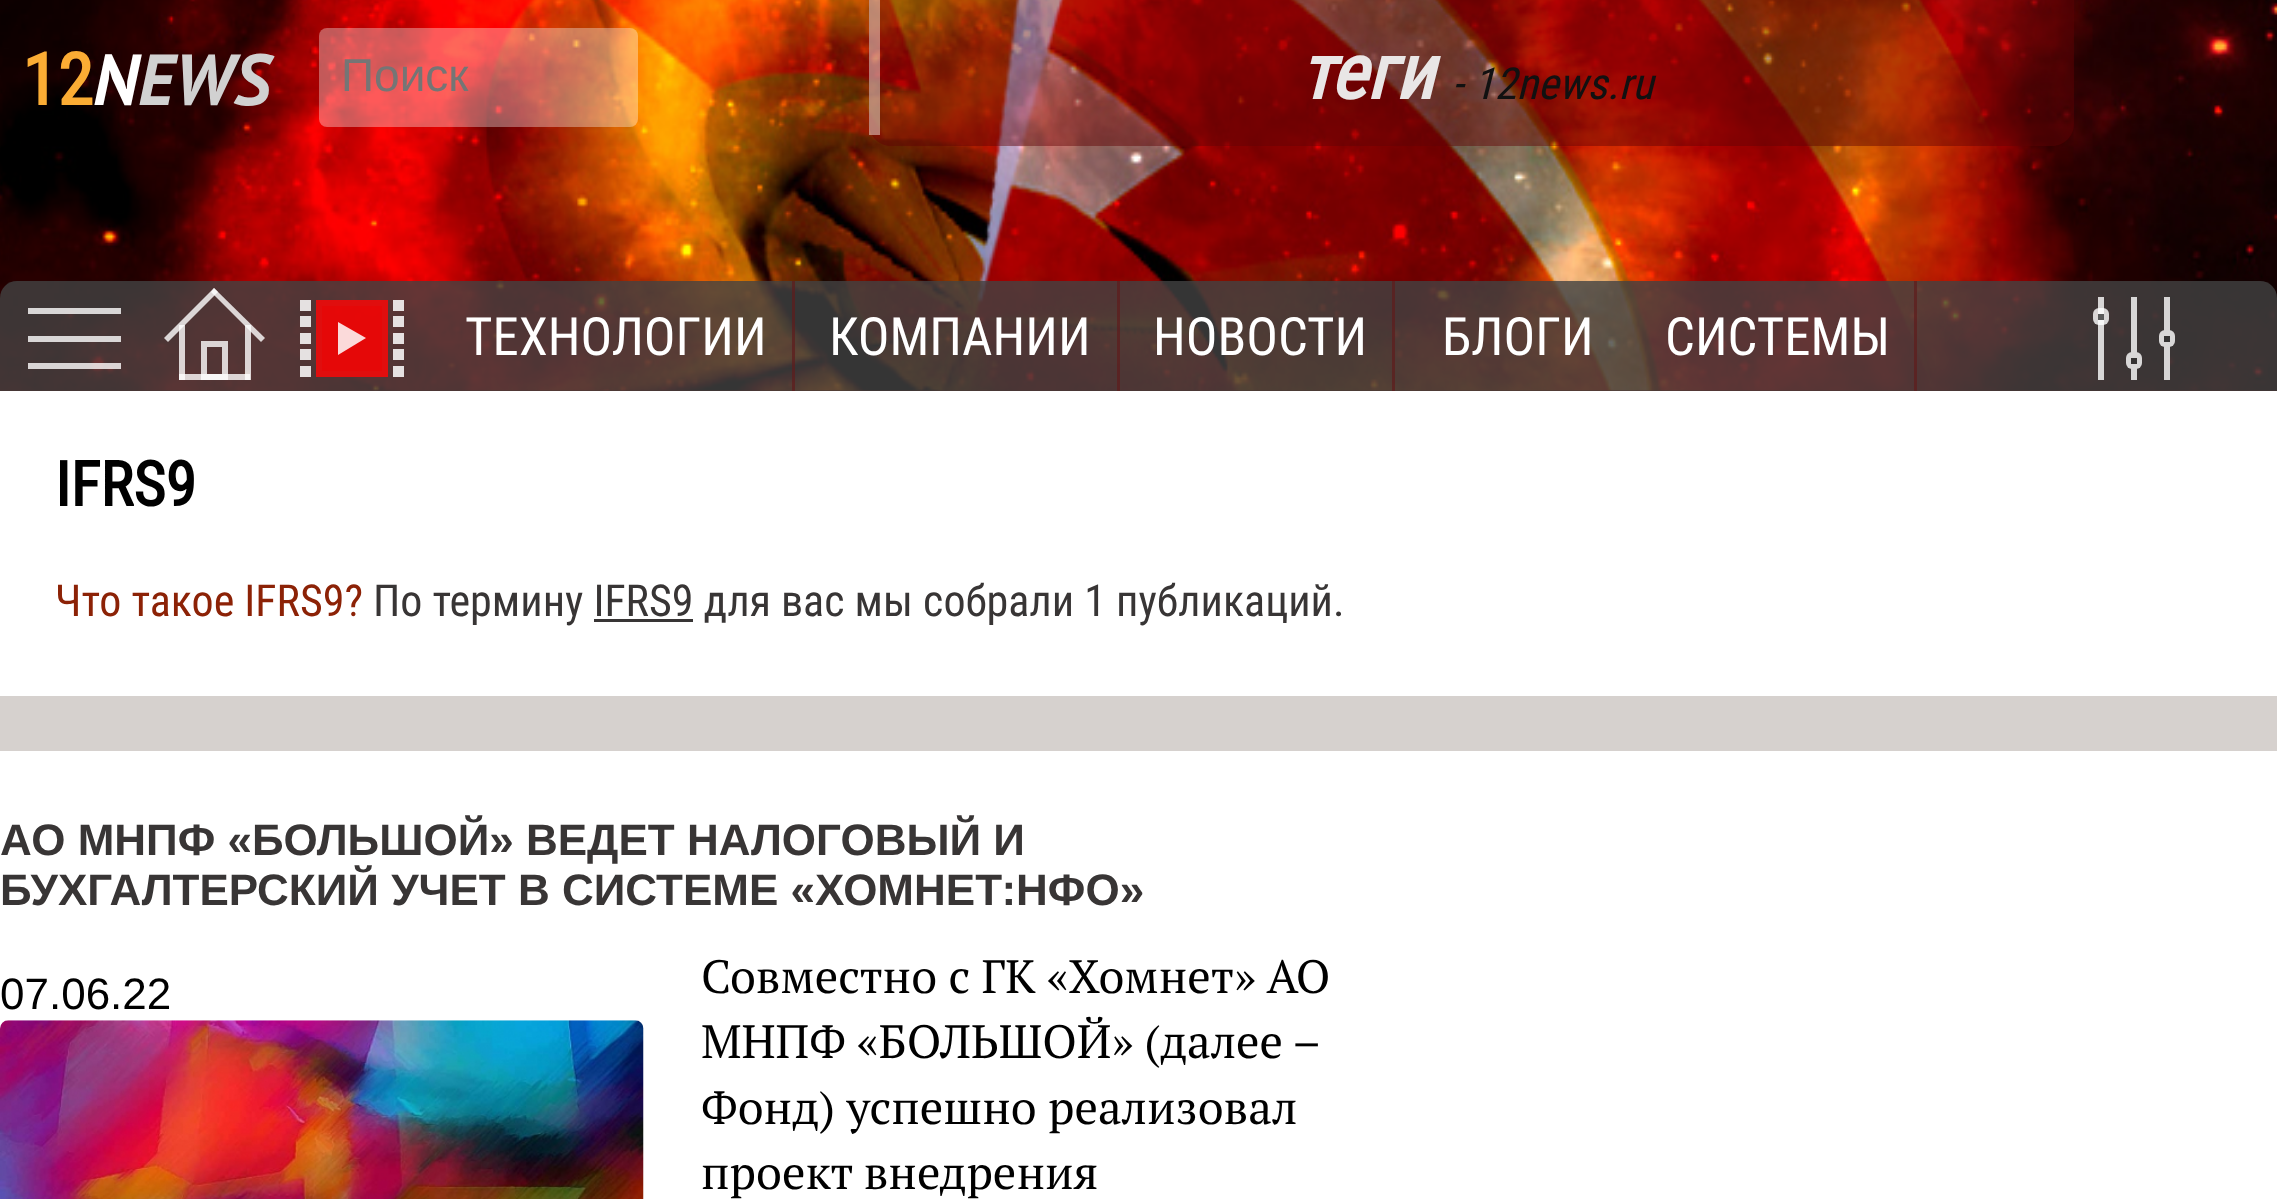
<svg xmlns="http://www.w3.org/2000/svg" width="2277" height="1199">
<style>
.a{font:bold 72px Roboto Condensed;fill:#fbac34}
.b{font:italic bold 72px PT Sans;fill:#fff}
.c{font:italic bold 72px PT Sans;fill:#d1d1d1}
.d{font:46px Liberation Sans;fill:#757575}
.e{font:italic bold 77px Roboto Condensed;fill:#e9e6e6}
.f{font:italic 44px Roboto Condensed;fill:#111}
.g{font:52.75px Roboto Condensed;fill:#fff}
.h{font:bold 62px Roboto Condensed;fill:#000}
.i{font:44px Roboto Condensed;fill:#8c2206}
.j{font:44px Roboto Condensed;fill:#383535}
.k{font:bold 44px Liberation Sans;fill:#383535}
.l{font:44px Liberation Sans;fill:#000}
.m{font:46.75px PT Serif;fill:#000}
</style>
<rect width="100%" height="100%" fill="#fff"/>
<path fill="#5a0e08" d="M0 390h2277v1H0z"/>
<image href="1.png" x="0" y="0" width="2277" height="391"/>
<rect fill="#ffffff59" x="319" y="28" width="319" height="99" rx="8"/>
<path fill="#5f020475" d="M869 0h1205v124c0 12-10 22-22 22h-1161c-12 0-22-10-22-22z"/>
<path fill="#f2e7df80" d="M869 0h11v135H869z"/>
<path fill="#424242cc" d="M17 281h2243c9.5 0 17 7.5 17 17v93h-2277v-93c0-9.5 7.5-17 17-17z"/>
<path fill="#ffffffcc" d="M28 336h93v6H28z"/>
<path fill="#ffffffcc" d="M28 308h93v6H28z"/>
<path fill="#ffffffcc" d="M28 363h93v6H28z"/>
<path fill="#ffffffcc" d="M245 325h6v55H245z"/>
<path fill="#ffffffcc" d="M179 374h71v6H179z"/>
<path fill="#ffffffcc" d="M179 325h6v55H179z"/>
<path fill="none" stroke="#ffffffcc" stroke-width="6" d="M204 344h21v33H204z"/>
<path fill="#ffffffcc" d="M214 288l51 50l-4 4l-50-50z"/>
<path fill="#ffffffcc" d="M214 288l4 4l-50 50l-4-4z"/>
<path fill="#ff0000d9" d="M316 300h72v77H316z"/>
<path fill="none" stroke="#de1111c4" stroke-width="6" d="M319 303h66v71H319z"/>
<path fill="#e5e1e1" d="M393 366h11v11H393z"/>
<path fill="#ffffffd9" d="M393 349h11v11H393z"/>
<path fill="#ffffffd9" d="M393 333h11v11H393z"/>
<path fill="#ffffffd9" d="M393 316h11v11H393z"/>
<path fill="#ffffffd9" d="M393 300h11v11H393z"/>
<path fill="#ffffffd9" d="M300 366h11v11H300z"/>
<path fill="#ffffffd9" d="M300 349h11v11H300z"/>
<path fill="#e5e1e1" d="M300 333h11v11H300z"/>
<path fill="#ffffffd9" d="M300 316h11v11H300z"/>
<path fill="#ffffffd9" d="M300 300h11v11H300z"/>
<path fill="#fbdada" d="M338 355v-33l28 16z"/>
<path fill="#5f1c1cb5" d="M792 281h3v110H792z"/>
<path fill="#5f1c1cb5" d="M1117 281h3v110H1117z"/>
<path fill="#5f1c1cb5" d="M1392 281h3v110H1392z"/>
<path fill="#5f1c1cb5" d="M1914 281h3v110H1914z"/>
<path fill="#ffffffcc" d="M2164 297h6v83H2164z"/>
<path fill="#d8d7d7" d="M2131 297h6v83H2131z"/>
<path fill="#ffffffcc" d="M2098 297h6v83H2098z"/>
<rect fill="#d8d7d7" x="2159" y="330" width="16" height="17" rx="6"/>
<rect fill="#d8d7d7" x="2126" y="352" width="16" height="17" rx="6"/>
<rect fill="#ffffffcc" x="2093" y="308" width="16" height="17" rx="6"/>
<path fill="#343333" d="M2164 336h6v6H2164z"/>
<path fill="#353333" d="M2131 358h6v6H2131z"/>
<path fill="#5a5a5a" d="M2098 314h6v6H2098z"/>
<path fill="#383535" d="M594 619h99v3H594z"/>
<path fill="#d6d1ce" d="M0 696h2277v55H0z"/>
<image href="2.png" x="0" y="1020" width="644" height="179"/>
<text class="a" x="22" y="105">12</text>
<text class="b" x="93" y="105">N</text>
<text class="c" x="138" y="105">EWS</text>
<text class="d" x="341" y="91">Поиск</text>
<text class="e" x="1300" y="99">теги</text>
<text class="f" x="1452" y="99">- 12news.ru</text>
<text class="g" x="465" y="355">ТЕХНОЛОГИИ</text>
<text class="g" x="829" y="355">КОМПАНИИ</text>
<text class="g" x="1153" y="355">НОВОСТИ</text>
<text class="g" x="1442" y="355">БЛОГИ</text>
<text class="g" x="1665" y="355">СИСТЕМЫ</text>
<text class="h" x="55" y="506">IFRS9</text>
<text class="i" x="55" y="616">Что такое IFRS9?</text>
<text class="j" x="373" y="616">По термину IFRS9 для вас мы собрали 1 публикаций.</text>
<text class="k" x="0" y="855">АО МНПФ «БОЛЬШОЙ» ВЕДЕТ НАЛОГОВЫЙ И</text>
<text class="k" x="0" y="905">БУХГАЛТЕРСКИЙ УЧЕТ В СИСТЕМЕ «ХОМНЕТ:НФО»</text>
<text class="l" x="0" y="1009">07.06.22</text>
<text class="m" x="701" y="993">Совместно с ГК «Хомнет» АО</text>
<text class="m" x="701" y="1058" word-spacing="-0.5">МНПФ «БОЛЬШОЙ» (далее –</text>
<text class="m" x="701" y="1124">Фонд) успешно реализовал</text>
<text class="m" x="701" y="1189">проект внедрения</text>
</svg>
